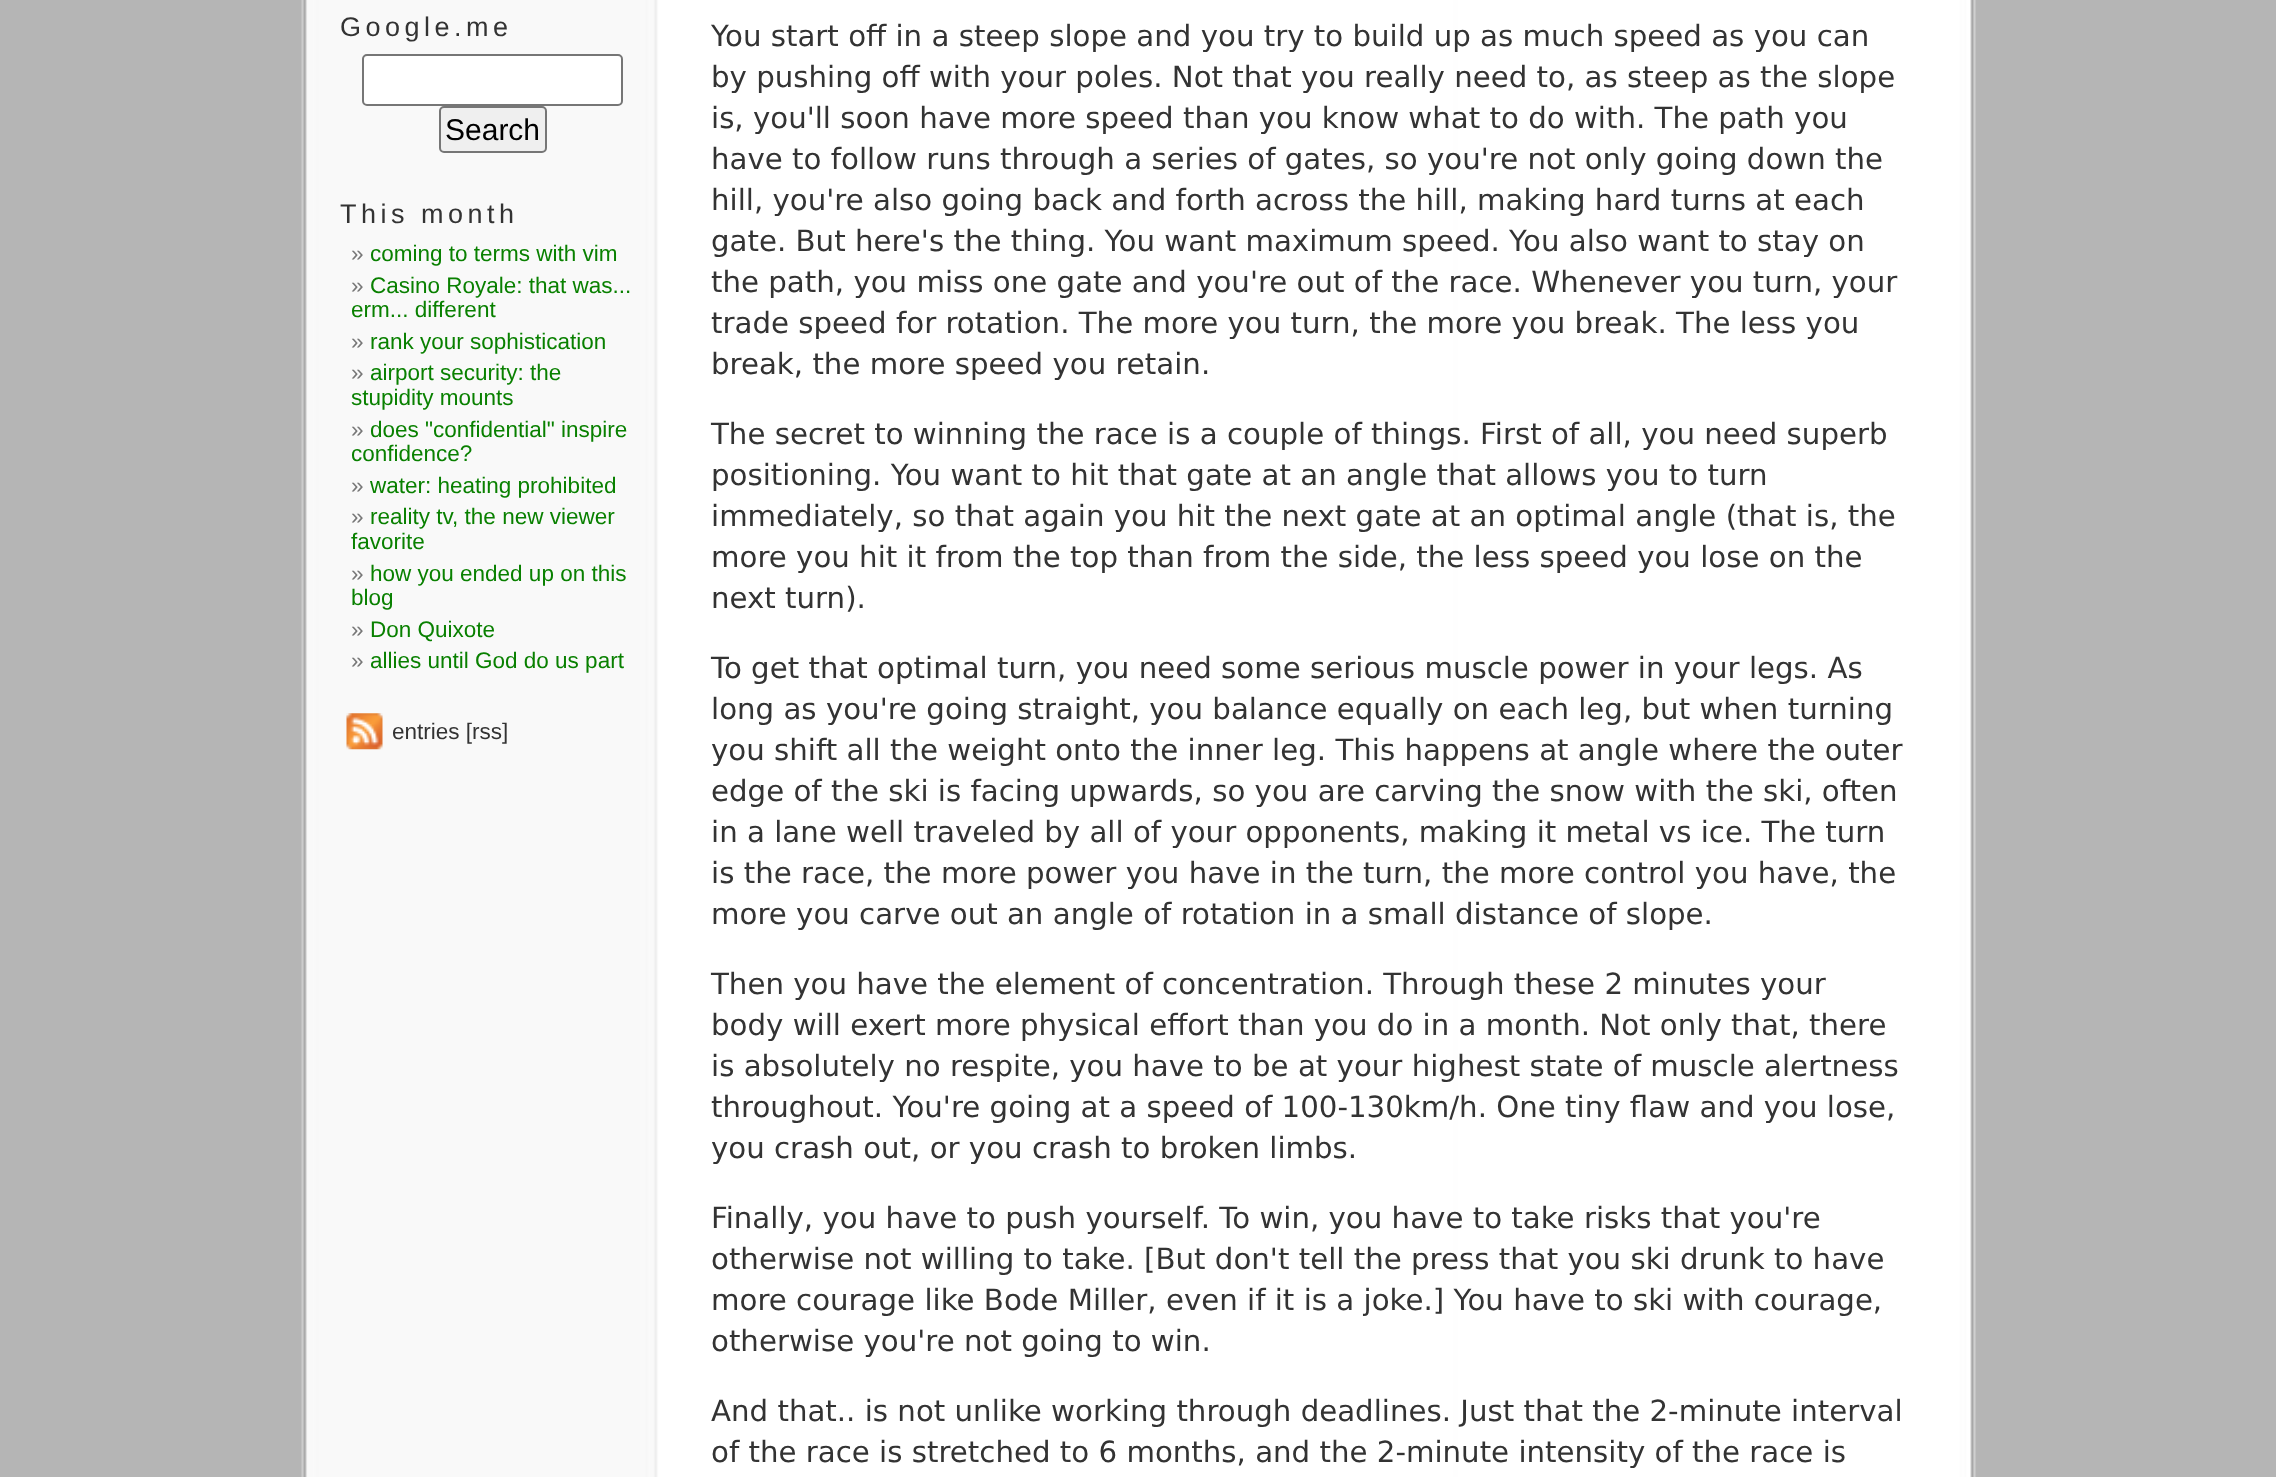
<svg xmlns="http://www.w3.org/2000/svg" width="2276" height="1477">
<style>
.a{font:27px Liberation Sans;letter-spacing:4.5px;fill:#333}
.b{font:30px Liberation Sans;fill:#000}
.c{font:22.5px Liberation Sans;fill:#777}
.d{font:22.5px Liberation Sans;fill:#098000}
.e{font:22.5px Liberation Sans;fill:#333}
.f{font:29.25px DejaVu Sans;fill:#333}
</style>
<rect width="100%" height="100%" fill="#b5b5b5"/>
<image href="1.png" x="301" y="0" width="1675" height="1477"/>
<rect fill="#fff" stroke="#767676" stroke-width="2" x="363" y="55" width="259" height="50" rx="4"/>
<rect fill="#efefef" stroke="#767676" stroke-width="2" x="440" y="107" width="106" height="45" rx="4"/>
<image href="2.png" x="346" y="713" width="37" height="37"/>
<text class="a" x="340" y="36">Google.me</text>
<text class="b" x="445" y="140">Search</text>
<text class="a" x="340" y="223">This month</text>
<text class="c" x="351" y="261">»</text>
<text class="d" x="370" y="261">coming to terms with vim</text>
<text class="c" x="351" y="293">»</text>
<text class="d" x="370" y="293">Casino Royale: that was...</text>
<text class="d" x="351" y="317">erm... different</text>
<text class="c" x="351" y="349">»</text>
<text class="d" x="370" y="349">rank your sophistication</text>
<text class="c" x="351" y="380">»</text>
<text class="d" x="370" y="380">airport security: the</text>
<text class="d" x="351" y="405">stupidity mounts</text>
<text class="c" x="351" y="437">»</text>
<text class="d" x="370" y="437">does "confidential" inspire</text>
<text class="d" x="351" y="461">confidence?</text>
<text class="c" x="351" y="493">»</text>
<text class="d" x="370" y="493">water: heating prohibited</text>
<text class="c" x="351" y="524">»</text>
<text class="d" x="370" y="524">reality tv, the new viewer</text>
<text class="d" x="351" y="549">favorite</text>
<text class="c" x="351" y="581">»</text>
<text class="d" x="370" y="581">how you ended up on this</text>
<text class="d" x="351" y="605">blog</text>
<text class="c" x="351" y="637">»</text>
<text class="d" x="370" y="637">Don Quixote</text>
<text class="c" x="351" y="668">»</text>
<text class="d" x="370" y="668">allies until God do us part</text>
<text class="e" x="392" y="739">entries [rss]</text>
<text class="f" x="711" y="46">You start off in a steep slope and you try to build up as much speed as you can</text>
<text class="f" x="711" y="87">by pushing off with your poles. Not that you really need to, as steep as the slope</text>
<text class="f" x="711" y="128">is, you'll soon have more speed than you know what to do with. The path you</text>
<text class="f" x="711" y="169">have to follow runs through a series of gates, so you're not only going down the</text>
<text class="f" x="711" y="210">hill, you're also going back and forth across the hill, making hard turns at each</text>
<text class="f" x="711" y="251">gate. But here's the thing. You want maximum speed. You also want to stay on</text>
<text class="f" x="711" y="292">the path, you miss one gate and you're out of the race. Whenever you turn, your</text>
<text class="f" x="711" y="333">trade speed for rotation. The more you turn, the more you break. The less you</text>
<text class="f" x="711" y="374">break, the more speed you retain.</text>
<text class="f" x="711" y="444">The secret to winning the race is a couple of things. First of all, you need superb</text>
<text class="f" x="711" y="485">positioning. You want to hit that gate at an angle that allows you to turn</text>
<text class="f" x="711" y="526">immediately, so that again you hit the next gate at an optimal angle (that is, the</text>
<text class="f" x="711" y="567">more you hit it from the top than from the side, the less speed you lose on the</text>
<text class="f" x="711" y="608">next turn).</text>
<text class="f" x="711" y="678">To get that optimal turn, you need some serious muscle power in your legs. As</text>
<text class="f" x="711" y="719">long as you're going straight, you balance equally on each leg, but when turning</text>
<text class="f" x="711" y="760">you shift all the weight onto the inner leg. This happens at angle where the outer</text>
<text class="f" x="711" y="801">edge of the ski is facing upwards, so you are carving the snow with the ski, often</text>
<text class="f" x="711" y="842">in a lane well traveled by all of your opponents, making it metal vs ice. The turn</text>
<text class="f" x="711" y="883">is the race, the more power you have in the turn, the more control you have, the</text>
<text class="f" x="711" y="924">more you carve out an angle of rotation in a small distance of slope.</text>
<text class="f" x="711" y="994">Then you have the element of concentration. Through these 2 minutes your</text>
<text class="f" x="711" y="1035">body will exert more physical effort than you do in a month. Not only that, there</text>
<text class="f" x="711" y="1076">is absolutely no respite, you have to be at your highest state of muscle alertness</text>
<text class="f" x="711" y="1117">throughout. You're going at a speed of 100-130km/h. One tiny flaw and you lose,</text>
<text class="f" x="711" y="1158">you crash out, or you crash to broken limbs.</text>
<text class="f" x="711" y="1228">Finally, you have to push yourself. To win, you have to take risks that you're</text>
<text class="f" x="711" y="1269">otherwise not willing to take. [But don't tell the press that you ski drunk to have</text>
<text class="f" x="711" y="1310">more courage like Bode Miller, even if it is a joke.] You have to ski with courage,</text>
<text class="f" x="711" y="1351">otherwise you're not going to win.</text>
<text class="f" x="711" y="1421">And that.. is not unlike working through deadlines. Just that the 2-minute interval</text>
<text class="f" x="711" y="1462">of the race is stretched to 6 months, and the 2-minute intensity of the race is</text>
</svg>
